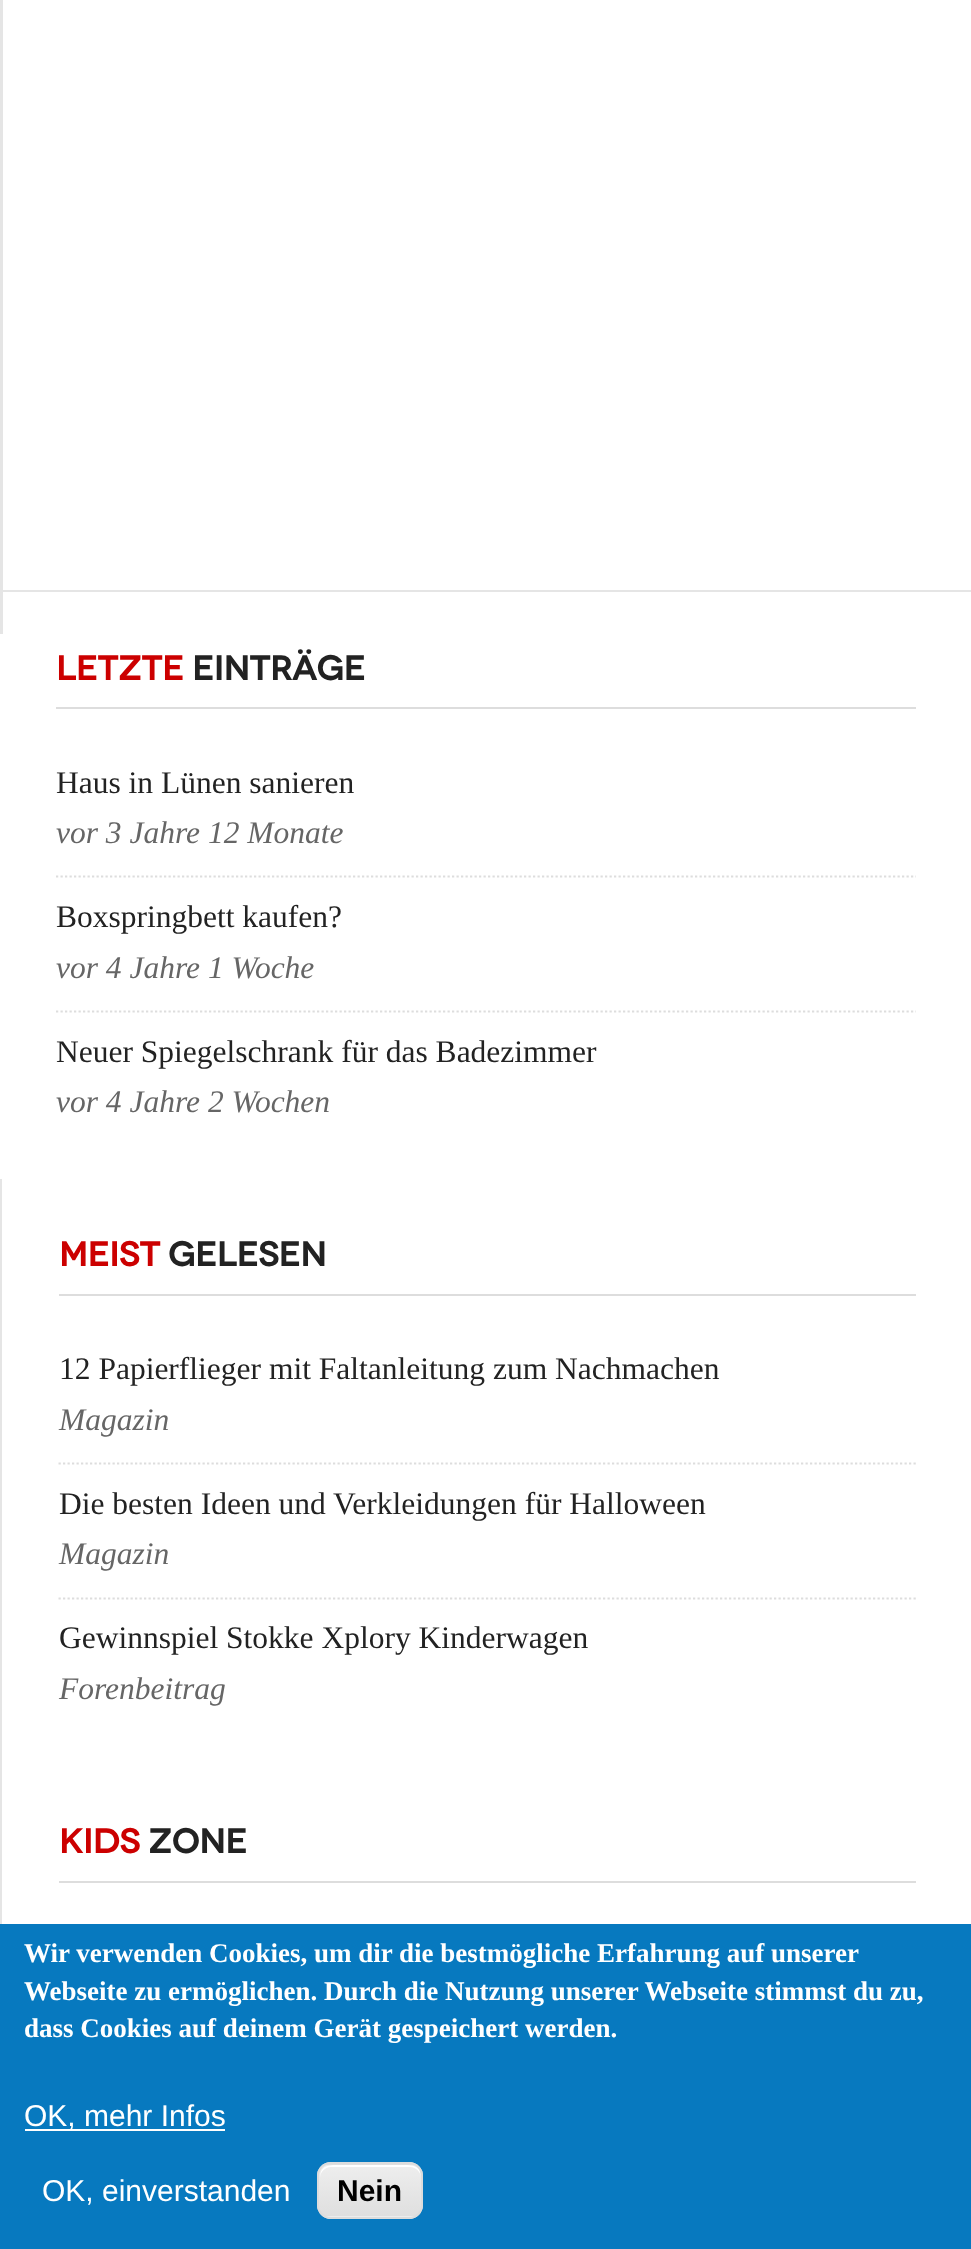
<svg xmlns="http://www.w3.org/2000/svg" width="971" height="2249">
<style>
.a{font:bold 34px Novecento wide;fill:#c00}
.b{font:bold 34px Novecento wide;fill:#222}
.c{font:31.5px Liberation Serif;fill:#222}
.d{font:italic 31.5px Liberation Serif;fill:#666}
.e{font:bold 27px Liberation Serif;fill:#fff}
.f{font:30px Liberation Sans;fill:#fff}
.g{font:bold 30px Liberation Sans;fill:#000}
</style>
<defs>
<clipPath id="clip1"><rect x="317" y="2162" width="106" height="57" rx="14"/></clipPath>
<linearGradient id="g1" gradientUnits="userSpaceOnUse" x1="370" y1="2113" x2="370" y2="2165"><stop offset="0.05" stop-color="#ededed"/><stop offset="1" stop-color="#dfdfdf"/></linearGradient>
<linearGradient id="g2" gradientUnits="userSpaceOnUse" x1="370" y1="2165" x2="370" y2="2216"><stop offset="0.05" stop-color="#ededed"/><stop offset="1" stop-color="#dfdfdf"/></linearGradient>
<linearGradient id="g3" gradientUnits="userSpaceOnUse" x1="370" y1="2216" x2="370" y2="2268"><stop offset="0.05" stop-color="#ededed"/><stop offset="1" stop-color="#dfdfdf"/></linearGradient>
</defs>
<rect width="100%" height="100%" fill="#fff"/>
<path fill="#e5e5e5" d="M0 590h971v2H0z"/>
<path fill="#e5e5e5" d="M0 0h3v634H0z"/>
<path fill="#ddd" d="M56 707h860v2H56z"/>
<path fill="none" stroke="#ddd" stroke-width="2.2" stroke-dasharray="2.25 2.25" d="M56 876.5h860"/>
<path fill="none" stroke="#ddd" stroke-width="2.2" stroke-dasharray="2.25 2.25" d="M56 1011.5h860"/>
<path fill="#e5e5e5" d="M0 1179h2v745H0z"/>
<path fill="#ddd" d="M59 1294h857v2H59z"/>
<path fill="none" stroke="#ddd" stroke-width="2.2" stroke-dasharray="2.25 2.25" d="M58.5 1463.5h857.5"/>
<path fill="none" stroke="#ddd" stroke-width="2.2" stroke-dasharray="2.25 2.25" d="M58.5 1598.5h857.5"/>
<path fill="#ddd" d="M59 1881h857v2H59z"/>
<path fill="#0779bf" d="M0 1924h971v325H0z"/>
<path fill="#fff" d="M25 2129h200v2H25z"/>
<g clip-path="url(#clip1)">
<path fill="url(#g1)" d="M317 2162h106v3H317z"/>
<path fill="url(#g2)" d="M317 2165h106v51H317z"/>
<path fill="url(#g3)" d="M317 2216h106v3H317z"/>
</g>
<path fill="#fff" d="M331 2167h79c6 0 11 5 11 11c0-15-12-13-24-13h-53c-12 0-24-2-24 13c0-6 5-11 11-11z"/>
<rect fill="none" stroke="#dcdcdc" stroke-width="2" x="318" y="2163" width="104" height="55" rx="13"/>
<text class="a" x="56" y="680">LETZTE</text>
<text class="b" x="192" y="680">EINTRÄGE</text>
<text class="c" x="56" y="793">Haus in Lünen sanieren</text>
<text class="d" x="56" y="843">vor 3 Jahre 12 Monate</text>
<text class="c" x="56" y="927">Boxspringbett kaufen?</text>
<text class="d" x="56" y="978">vor 4 Jahre 1 Woche</text>
<text class="c" x="56" y="1062">Neuer Spiegelschrank für das Badezimmer</text>
<text class="d" x="56" y="1112">vor 4 Jahre 2 Wochen</text>
<text class="a" x="59" y="1266">MEIST</text>
<text class="b" x="168" y="1266">GELESEN</text>
<text class="c" x="59" y="1379">12 Papierflieger mit Faltanleitung zum Nachmachen</text>
<text class="d" x="59" y="1430">Magazin</text>
<text class="c" x="59" y="1514">Die besten Ideen und Verkleidungen für Halloween</text>
<text class="d" x="59" y="1564">Magazin</text>
<text class="c" x="59" y="1648">Gewinnspiel Stokke Xplory Kinderwagen</text>
<text class="d" x="59" y="1699">Forenbeitrag</text>
<text class="a" x="59" y="1853">KIDS</text>
<text class="b" x="148" y="1853">ZONE</text>
<text class="e" x="24" y="1962">Wir verwenden Cookies, um dir die bestmögliche Erfahrung auf unserer</text>
<text class="e" x="24" y="2000">Webseite zu ermöglichen. Durch die Nutzung unserer Webseite stimmst du zu,</text>
<text class="e" x="24" y="2037">dass Cookies auf deinem Gerät gespeichert werden.</text>
<text class="f" x="24" y="2126">OK, mehr Infos</text>
<text class="f" x="42" y="2201">OK, einverstanden</text>
<text class="g" x="337" y="2201">Nein</text>
</svg>
